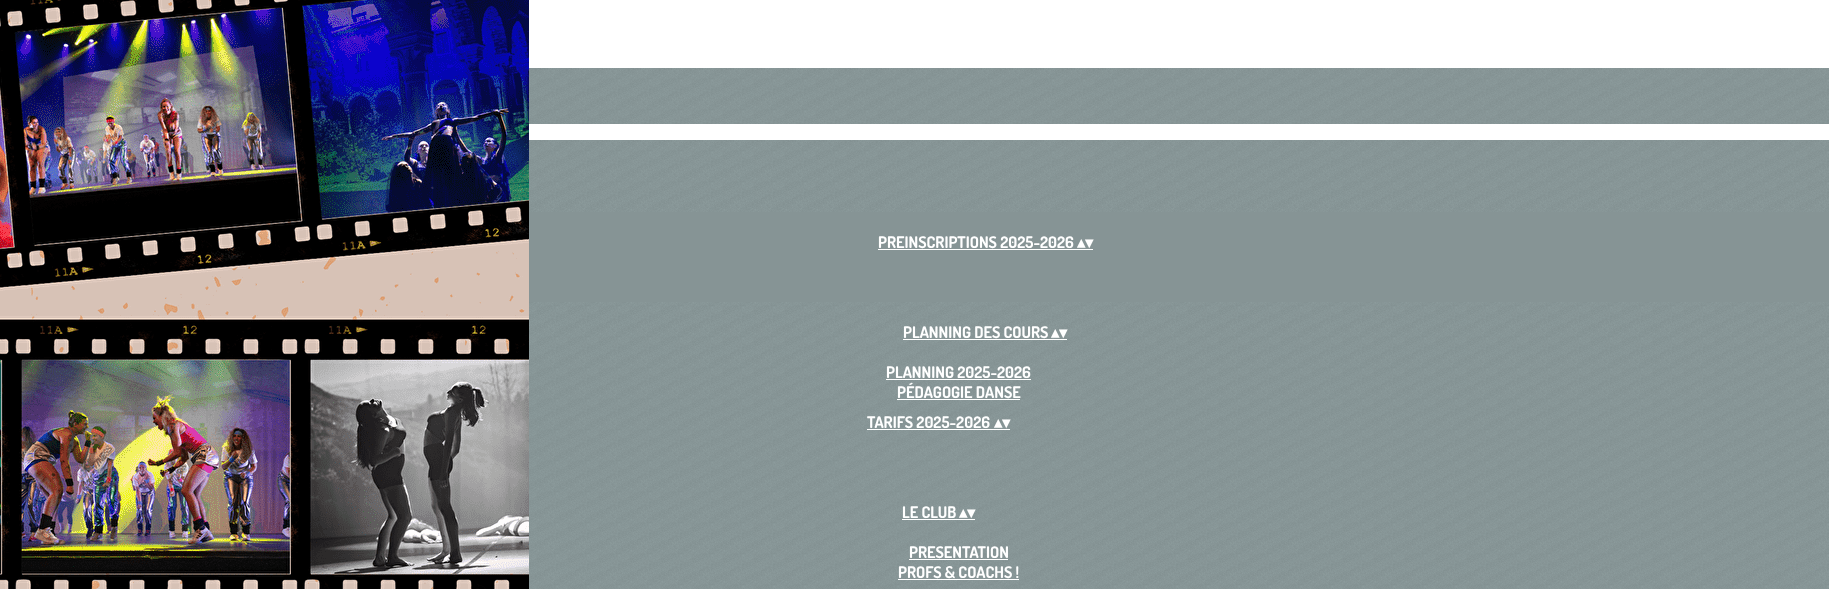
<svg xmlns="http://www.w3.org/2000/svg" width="1837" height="589">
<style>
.a{font:bold 16px Dosis;fill:#fff}
.b{font:bold 16px DejaVu Sans;fill:#fff}
</style>
<rect width="100%" height="100%" fill="#fff"/>
<image href="1.png" x="0" y="0" width="529" height="589"/>
<path fill="#95a5a6" d="M529 68h1300v56H529z"/>
<image href="2.png" x="529" y="68" width="1300" height="56"/>
<path fill="#95a5a6" d="M529 140h1300v449H529z"/>
<image href="3.png" x="529" y="140" width="1300" height="449"/>
<path fill="#869495" d="M529 212h1300v90H529z"/>
<path fill="#fff" d="M878 249h215v1H878z"/>
<path fill="#fff" d="M903 339h164v1H903z"/>
<path fill="#fff" d="M886 379h145v1H886z"/>
<path fill="#fff" d="M897 399h123v1H897z"/>
<path fill="#fff" d="M867 429h143v1H867z"/>
<path fill="#fff" d="M902 519h73v1H902z"/>
<path fill="#fff" d="M909 559h99v1H909z"/>
<path fill="#fff" d="M898 579h121v1H898z"/>
<text class="a" x="878" y="248">PREINSCRIPTIONS 2025-2026</text>
<text class="b" x="1077" y="248">▴▾</text>
<text class="a" x="903" y="338">PLANNING DES COURS</text>
<text class="b" x="1051" y="338">▴▾</text>
<text class="a" x="886" y="378">PLANNING 2025-2026</text>
<text class="a" x="897" y="398">PÉDAGOGIE DANSE</text>
<text class="a" x="867" y="428">TARIFS 2025-2026</text>
<text class="b" x="994" y="428">▴▾</text>
<text class="a" x="902" y="518">LE CLUB</text>
<text class="b" x="959" y="518">▴▾</text>
<text class="a" x="909" y="558">PRESENTATION</text>
<text class="a" x="898" y="578">PROFS &amp; COACHS !</text>
</svg>
